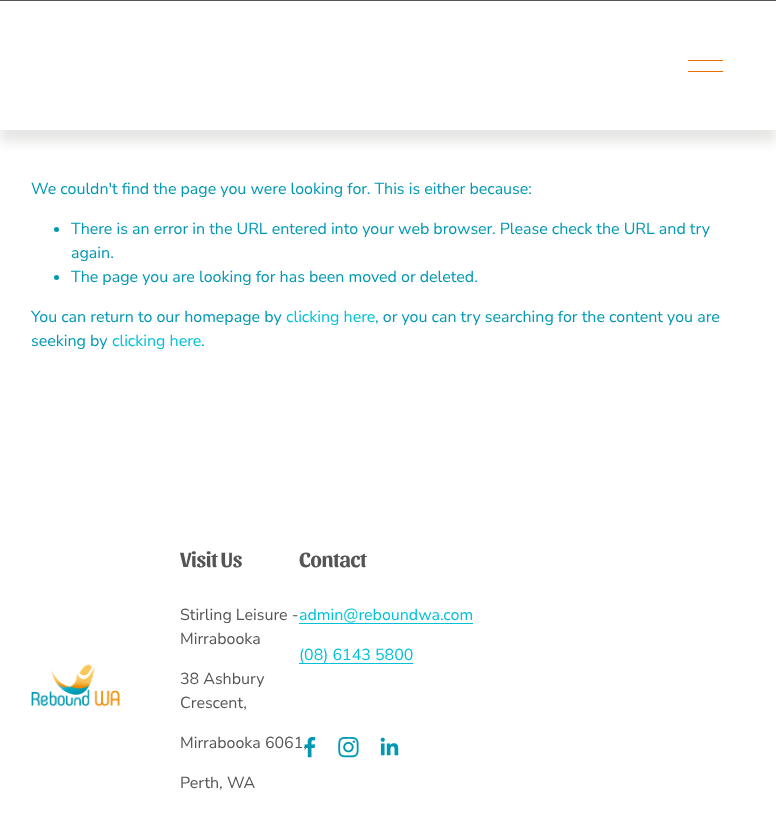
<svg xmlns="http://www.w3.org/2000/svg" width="776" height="840">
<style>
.a{font:16px Nunito Sans;fill:#0198b3}
.b{font:16px Nunito Sans;fill:#00c1d5}
.c{font:bold 21.5px Sansita;letter-spacing:-0.5px;fill:#555553}
.d{font:16px Nunito Sans;fill:#555553}
</style>
<defs>
<clipPath id="clip1"><path d="M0 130h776v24H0z"/></clipPath>
</defs>
<rect width="100%" height="100%" fill="#fff"/>
<g clip-path="url(#clip1)">
<path fill="#e6e6e5" filter="blur(6px)" d="M0 12h776v130H0z"/>
</g>
<path fill="#555553" d="M0 0h776v1H0z"/>
<path fill="#f06e00" d="M688 60h35v1H688z"/>
<path fill="#f06e00" d="M688 71h35v1H688z"/>
<circle fill="#0198b3" cx="56.5" cy="229.5" r="2.5"/>
<circle fill="#0198b3" cx="56.5" cy="277.5" r="2.5"/>
<path fill="#00c1d5" d="M299 623h174v1H299z"/>
<path fill="#00c1d5" d="M299 663h114v1H299z"/>
<image href="1.png" x="31" y="664" width="89" height="43"/>
<image href="3.png" x="338" y="737" width="21" height="21"/>
<image href="4.png" x="380" y="737" width="19" height="19"/>
<text class="a" x="31" y="194">We couldn't find the page you were looking for. This is either because:</text>
<text class="a" x="71" y="234">There is an error in the URL entered into your web browser. Please check the URL and try</text>
<text class="a" x="71" y="258">again.</text>
<text class="a" x="71" y="282">The page you are looking for has been moved or deleted.</text>
<text class="a" x="31" y="322">You can return to our homepage by</text>
<text class="b" x="286" y="322">clicking here</text>
<text class="a" x="375" y="322">, or you can try searching for the content you are</text>
<text class="a" x="31" y="346">seeking by</text>
<text class="b" x="112" y="346">clicking here</text>
<text class="a" x="201" y="346">.</text>
<text class="c" x="180" y="567">Visit Us</text>
<text class="d" x="180" y="620">Stirling Leisure -</text>
<text class="d" x="180" y="644">Mirrabooka</text>
<text class="d" x="180" y="684">38 Ashbury</text>
<text class="d" x="180" y="708">Crescent,</text>
<text class="d" x="180" y="748">Mirrabooka 6061,</text>
<text class="d" x="180" y="788">Perth, WA</text>
<text class="c" x="299" y="567">Contact</text>
<text class="b" x="299" y="620">admin@reboundwa.com</text>
<text class="b" x="299" y="660">(08) 6143 5800</text>
<image href="2.png" x="304" y="737" width="12" height="21"/>
</svg>
